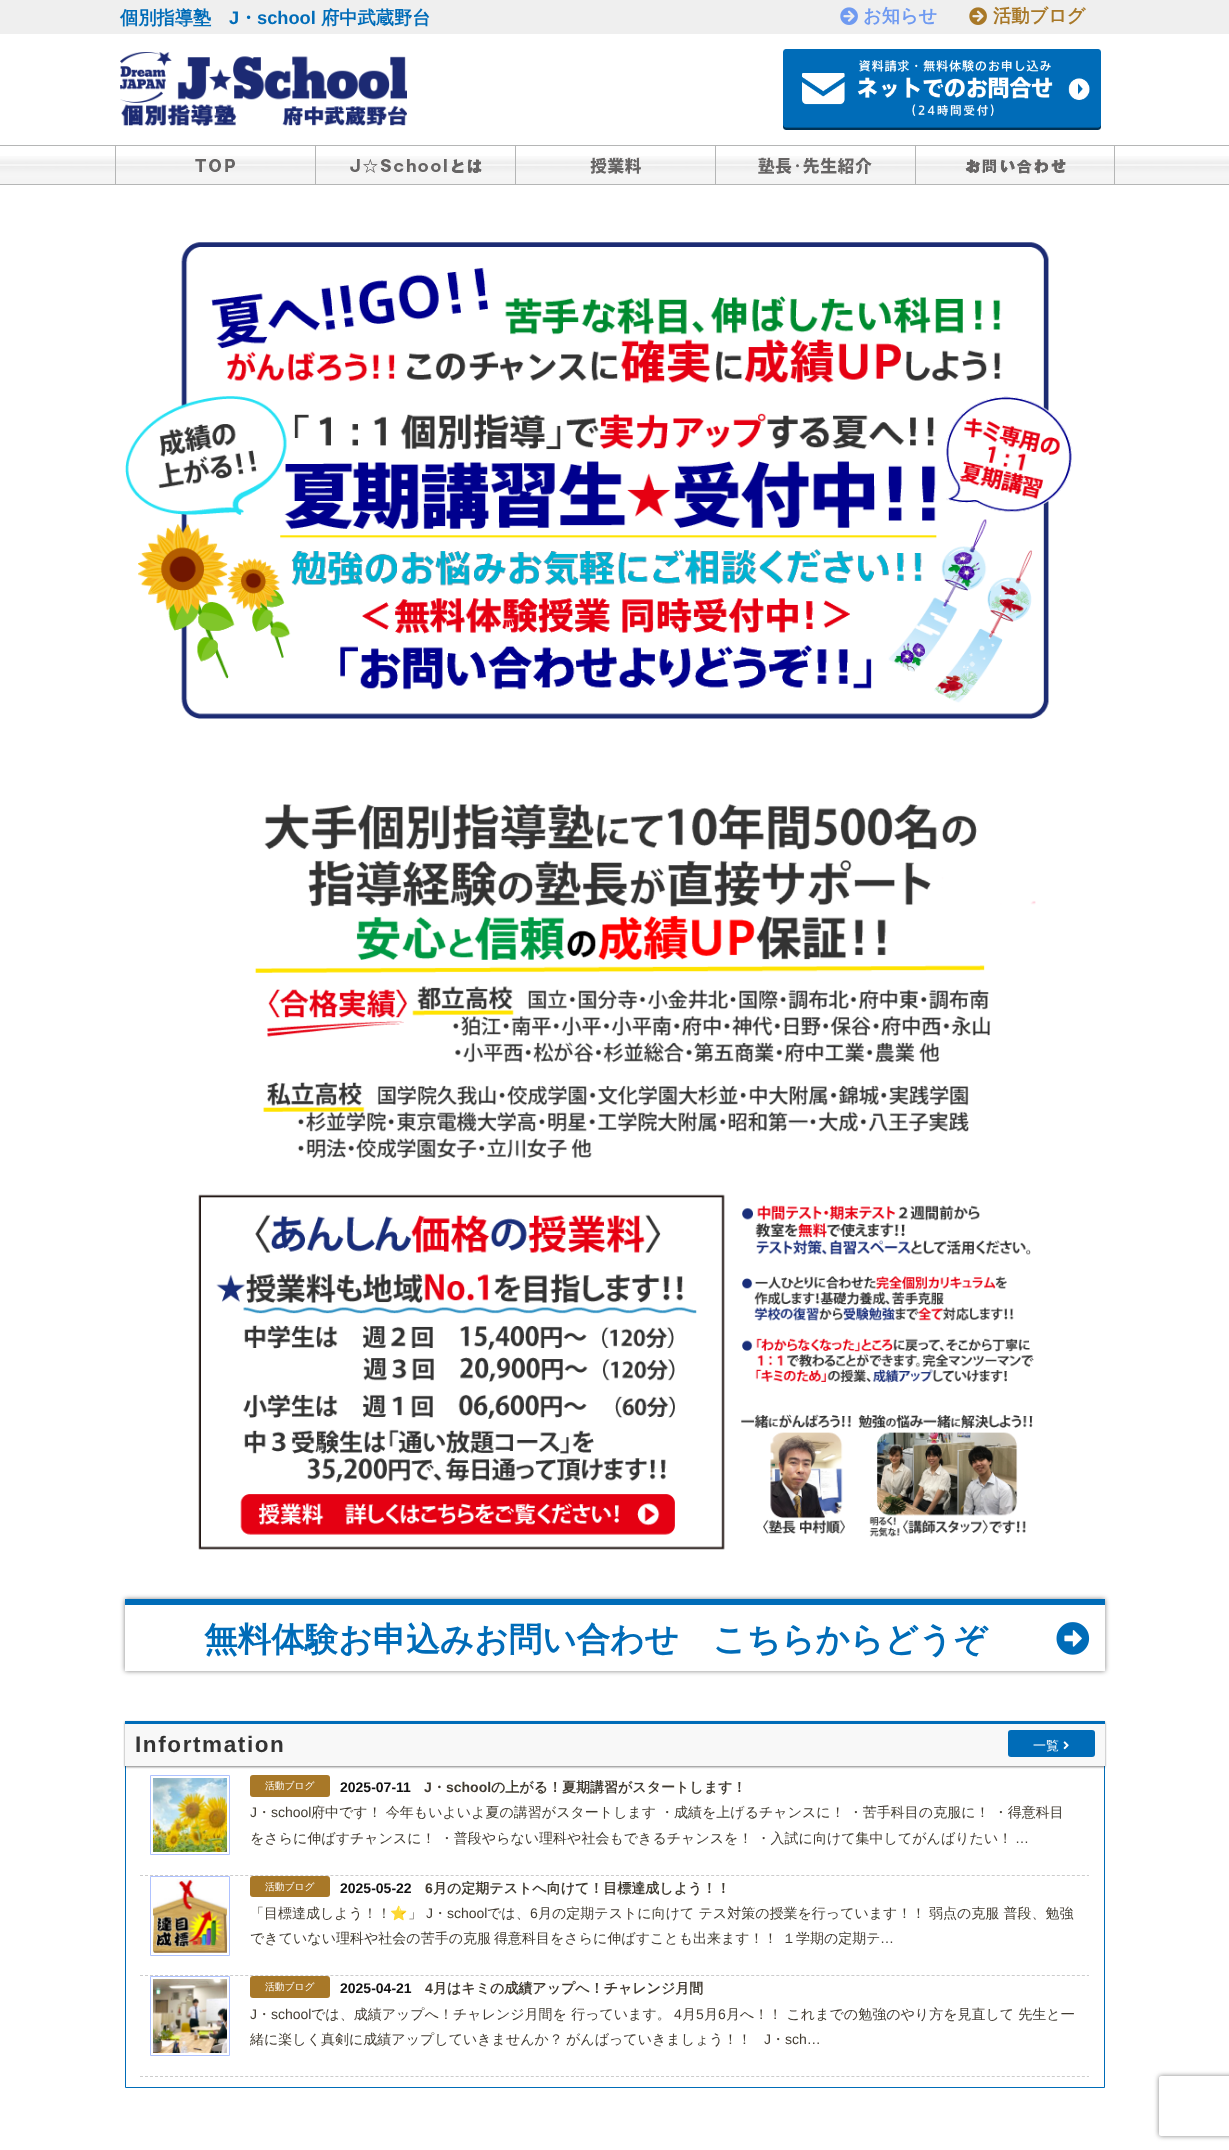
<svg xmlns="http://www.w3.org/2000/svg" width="1229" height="2150">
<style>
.a{font:bold 18.25px WenQuanYi Zen Hei;fill:#006cb8}
.b{font:bold 18.25px Liberation Sans;fill:#006cb8}
.c{font:bold 18.25px WenQuanYi Zen Hei;fill:#6f9af1}
.d{font:bold 18.25px WenQuanYi Zen Hei;fill:#a87828}
.e{font:bold 33.6px WenQuanYi Zen Hei;fill:#006cb8}
.f{font:bold 22.5px Liberation Sans;letter-spacing:1.6px;fill:#333}
.g{font:500 13px WenQuanYi Zen Hei;fill:#fff}
.h{font:500 9.75px WenQuanYi Zen Hei;fill:#fff}
.i{font:bold 14px Liberation Sans;fill:#111}
.j{font:bold 14px Liberation Sans;fill:#413b31}
.k{font:bold 14px WenQuanYi Zen Hei;fill:#413b31}
.l{font:14px Liberation Sans;fill:#413b31}
.m{font:500 14px WenQuanYi Zen Hei;fill:#413b31}
.n{font:14px Noto Color Emoji;fill:#413b31}
</style>
<defs>
<clipPath id="clip1"><path d="M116 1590h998v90h-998zm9 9h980v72h-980z" clip-rule="evenodd"/></clipPath>
<clipPath id="clip2"><path d="M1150 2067h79v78h-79zm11 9h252c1 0 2 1 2 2v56c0 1-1 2-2 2h-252c-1 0-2-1-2-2v-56c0-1 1-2 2-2z" clip-rule="evenodd"/></clipPath>
</defs>
<rect width="100%" height="100%" fill="#fff"/>
<path fill="#efefef" d="M0 0h1229v34H0z"/>
<image href="1.png" x="840" y="7" width="18" height="18"/>
<image href="2.png" x="969" y="7" width="18" height="18"/>
<image href="3.png" x="120" y="52" width="287" height="75"/>
<image href="4.png" x="783" y="49" width="318" height="81"/>
<image href="5.png" x="0" y="156" width="1229" height="28"/>
<path fill="#b5b6b6" d="M0 145h1229v1H0z"/>
<path fill="#b5b6b6" d="M0 184h1229v1H0z"/>
<path fill="#b5b6b6" d="M115 146h1v38H115z"/>
<image href="6.png" x="195" y="159" width="40" height="13"/>
<path fill="#b5b6b6" d="M315 146h1v38H315z"/>
<image href="7.png" x="350" y="159" width="132" height="14"/>
<path fill="#b5b6b6" d="M515 146h1v38H515z"/>
<image href="8.png" x="590" y="157" width="51" height="17"/>
<path fill="#b5b6b6" d="M715 146h1v38H715z"/>
<image href="9.png" x="758" y="157" width="114" height="17"/>
<path fill="#b5b6b6" d="M1114 146h1v38H1114z"/>
<path fill="#b5b6b6" d="M915 146h1v38H915z"/>
<image href="10.png" x="965" y="159" width="101" height="15"/>
<image href="11.png" x="125" y="242" width="947" height="477"/>
<image href="12.png" x="255" y="803" width="781" height="356"/>
<image href="13.png" x="198" y="1194" width="836" height="356"/>
<g clip-path="url(#clip1)">
<path fill="#00000080" filter="blur(2.5px)" d="M125 1599h980v72H125z"/>
</g>
<path fill="#006cb8" d="M125 1599h980v6H125z"/>
<image href="14.png" x="1056" y="1622" width="34" height="33"/>
<path fill="none" stroke="#006cb8" d="M125.5 1764.5h979v323H125.5z"/>
<path fill="#00000080" filter="blur(1px)" d="M125 1722h980v45H125z"/>
<path fill="#f8f8f8" d="M125 1724h980v42H125z"/>
<path fill="#006cb8" d="M125 1721h980v3H125z"/>
<rect fill="#006cb8" x="1008" y="1730" width="87" height="27" rx="3"/>
<image href="15.png" x="1063" y="1741" width="6" height="9"/>
<path fill="none" stroke="#ccc" stroke-dasharray="3 2.01" d="M140 1875.5h949"/>
<path fill="none" stroke="#afc2ff" d="M150.5 1775.5h79v79H150.5z"/>
<image href="16.png" x="153" y="1778" width="74" height="74"/>
<rect fill="#a87828" x="250" y="1775" width="80" height="22" rx="3"/>
<path fill="none" stroke="#ccc" stroke-dasharray="3 2.01" d="M140 1975.5h949"/>
<path fill="none" stroke="#afc2ff" d="M150.5 1876.5h79v79H150.5z"/>
<image href="17.png" x="153" y="1879" width="74" height="74"/>
<rect fill="#a87828" x="250" y="1876" width="80" height="21" rx="3"/>
<path fill="none" stroke="#ccc" stroke-dasharray="3 2.01" d="M140 2076.5h949"/>
<path fill="none" stroke="#afc2ff" d="M150.5 1976.5h79v79H150.5z"/>
<image href="18.png" x="153" y="1979" width="74" height="74"/>
<rect fill="#a87828" x="250" y="1976" width="80" height="22" rx="3"/>
<g clip-path="url(#clip2)">
<rect fill="#808080" filter="blur(2.5px)" x="1159" y="2076" width="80" height="60" rx="2"/>
</g>
<text class="a" x="120" y="24">個別指導塾</text>
<text class="b" x="229" y="24">J</text>
<text class="a" x="239" y="24">・</text>
<text class="b" x="257" y="24">school</text>
<text class="a" x="321" y="24">府中武蔵野台</text>
<text class="c" x="863" y="22">お知らせ</text>
<text class="d" x="993" y="22">活動ブログ</text>
<text class="e" x="204" y="1651">無料体験お申込みお問い合わせ　こちらからどうぞ</text>
<text class="f" x="135" y="1752">Infortmation</text>
<text class="g" x="1033" y="1750">一覧</text>
<text class="h" x="265" y="1789">活動ブログ</text>
<text class="i" x="340" y="1792">2025-07-11</text>
<text class="j" x="424" y="1792">J</text>
<text class="k" x="432" y="1792">・</text>
<text class="j" x="446" y="1792">school</text>
<text class="k" x="491" y="1792">の上がる！夏期講習がスタートします！</text>
<text class="l" x="250" y="1817">J</text>
<text class="m" x="257" y="1817">・</text>
<text class="l" x="271" y="1817">school</text>
<text class="m" x="311" y="1817">府中です！ 今年もいよいよ夏の講習がスタートします</text>
<text class="m" x="660" y="1817">・成績を上げるチャンスに！ ・苦手科目の克服に！ ・得意科目</text>
<text class="m" x="250" y="1843">をさらに伸ばすチャンスに！ ・普段やらない理科や社会もできるチャンスを！ ・入試に向けて集中してがんばりたい！</text>
<text class="l" x="1015" y="1843">…</text>
<text class="h" x="265" y="1890">活動ブログ</text>
<text class="i" x="340" y="1893">2025-05-22</text>
<text class="j" x="425" y="1893">6</text>
<text class="k" x="433" y="1893">月の定期テストへ向けて！目標達成しよう！！</text>
<text class="m" x="250" y="1918">「目標達成しよう！！</text>
<text class="n" x="390" y="1918">⭐️</text>
<text class="m" x="408" y="1918">」</text>
<text class="l" x="426" y="1918">J</text>
<text class="m" x="433" y="1918">・</text>
<text class="l" x="447" y="1918">school</text>
<text class="m" x="487" y="1918">では、</text>
<text class="l" x="530" y="1918">6</text>
<text class="m" x="538" y="1918">月の定期テストに向けて テス対策の授業を行っています！！</text>
<text class="m" x="929" y="1918">弱点の克服 普段、勉強</text>
<text class="m" x="250" y="1943">できていない理科や社会の苦手の克服</text>
<text class="m" x="494" y="1943">得意科目をさらに伸ばすことも出来ます！！</text>
<text class="m" x="782" y="1943">１学期の定期テ</text>
<text class="l" x="880" y="1943">…</text>
<text class="h" x="265" y="1990">活動ブログ</text>
<text class="i" x="340" y="1993">2025-04-21</text>
<text class="j" x="425" y="1993">4</text>
<text class="k" x="433" y="1993">月はキミの成績アップへ！チャレンジ月間</text>
<text class="l" x="250" y="2019">J</text>
<text class="m" x="257" y="2019">・</text>
<text class="l" x="271" y="2019">school</text>
<text class="m" x="311" y="2019">では、成績アップへ！チャレンジ月間を 行っています。</text>
<text class="l" x="674" y="2019">4</text>
<text class="m" x="682" y="2019">月</text>
<text class="l" x="696" y="2019">5</text>
<text class="m" x="704" y="2019">月</text>
<text class="l" x="718" y="2019">6</text>
<text class="m" x="726" y="2019">月へ！！ これまでの勉強のやり方を見直して 先生と一</text>
<text class="m" x="250" y="2044">緒に楽しく真剣に成績アップしていきませんか？</text>
<text class="m" x="566" y="2044">がんばっていきましょう！！</text>
<text class="l" x="764" y="2044">J</text>
<text class="m" x="771" y="2044">・</text>
<text class="l" x="785" y="2044">sch…</text>
</svg>
